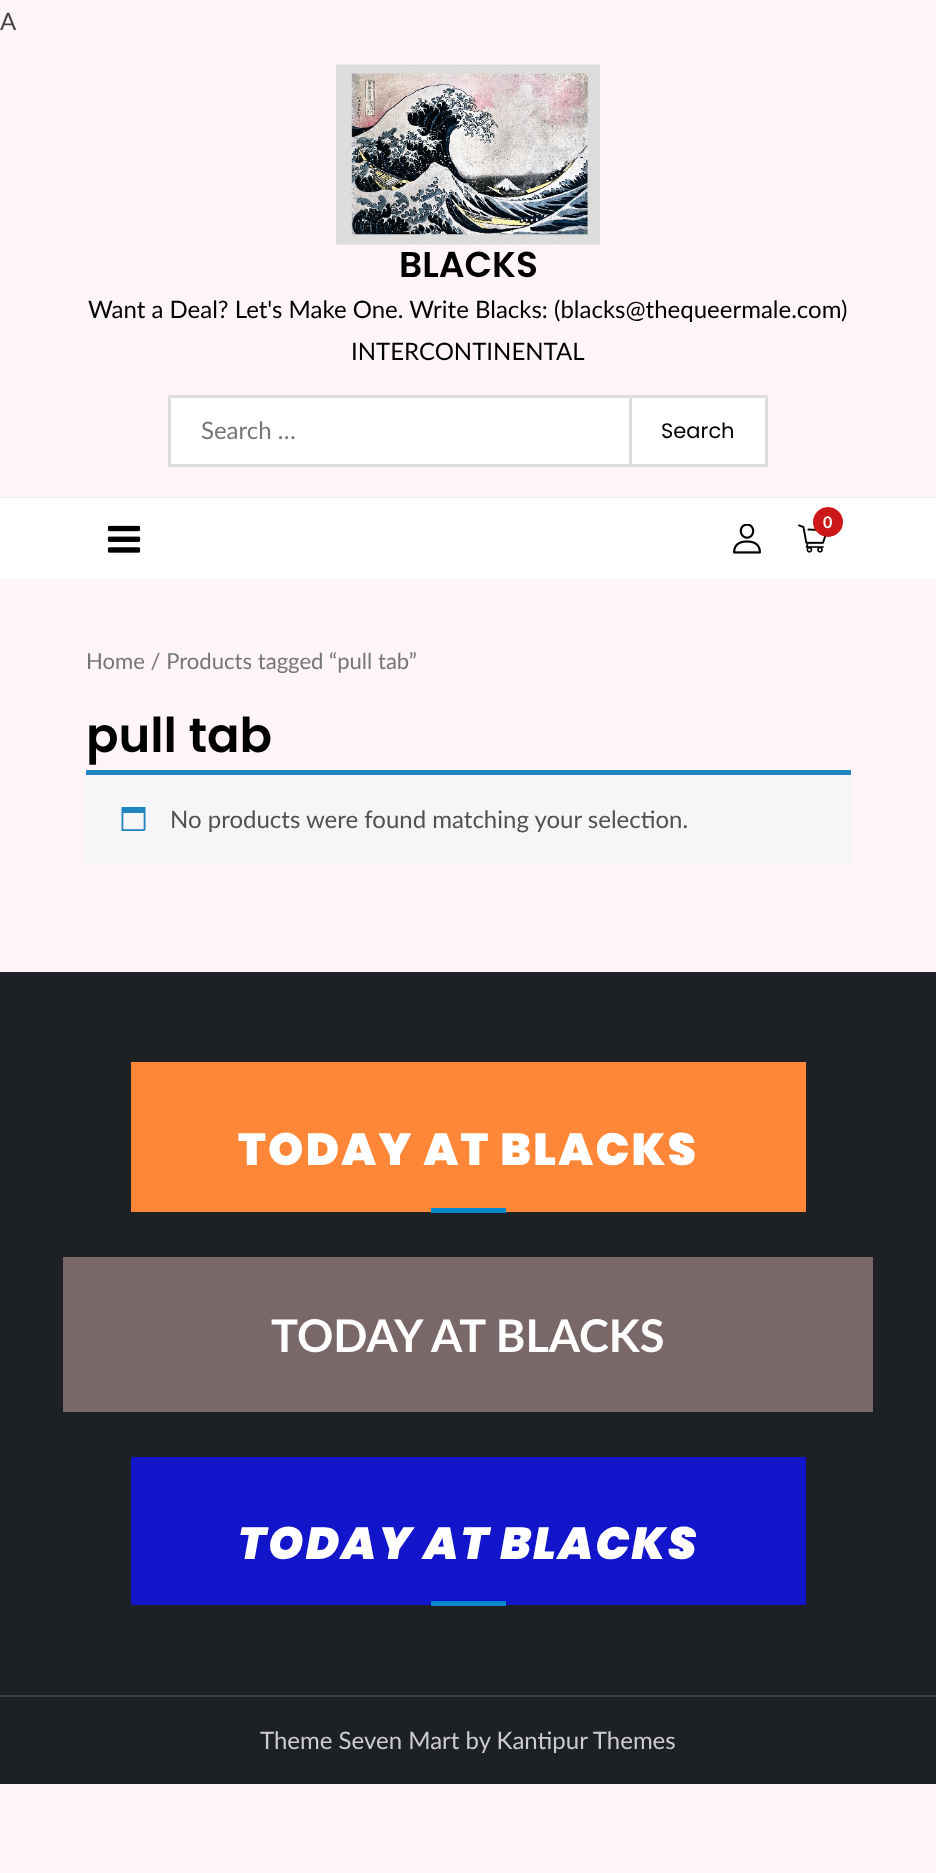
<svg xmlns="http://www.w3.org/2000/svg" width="936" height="1873">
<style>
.a{font:24px Lato;fill:#444}
.b{font:600 36px Poppins;fill:#000}
.c{font:24px Lato;fill:#000}
.d{font:24px Lato;fill:#767676}
.e{font:21px Poppins;fill:#000}
.f{font:bold 16px Lato;fill:#fff}
.g{font:22.1px Lato;fill:#767676}
.h{font:600 48px Poppins;fill:#000}
.i{font:24px Lato;fill:#515151}
.j{font:900 45px Poppins;letter-spacing:2.25px;fill:#fff}
.k{font:bold 45px Lato;fill:#fff}
.l{font:italic 900 45px Poppins;letter-spacing:2.25px;fill:#fff}
.m{font:24px Lato;fill:#ccc}
</style>
<rect width="100%" height="100%" fill="#fff4f7"/>
<path fill="#eee" d="M0 497h936v1H0z"/>
<image href="1.png" x="336" y="64" width="264" height="181"/>
<path fill="#fff" stroke="#ddd" stroke-width="3" d="M169.5 396.5h597v69H169.5z"/>
<path fill="#ddd" d="M629 398h3v66H629z"/>
<path fill="#fff" d="M0 498h936v81H0z"/>
<image href="2.png" x="798" y="524" width="29" height="29"/>
<circle fill="#cc1818" cx="828" cy="522" r="15"/>
<image href="3.png" x="733" y="524" width="28" height="30"/>
<image href="4.png" x="107" y="525" width="34" height="28"/>
<path fill="#f6f5f8" d="M86 775h765v89H86z"/>
<path fill="#1e85be" d="M86 770h765v5H86z"/>
<image href="5.png" x="121" y="807" width="25" height="24"/>
<path fill="#1d2024" d="M0 972h936v812H0z"/>
<path fill="#ff8737" d="M131 1062h675v150H131z"/>
<path fill="#0188cc" d="M431 1208h75v5H431z"/>
<path fill="#7a6868" d="M63 1257h810v155H63z"/>
<path fill="#1215c9" d="M131 1457h675v148H131z"/>
<path fill="#0188cc" d="M431 1601h75v5H431z"/>
<path fill="#3f4145" d="M0 1695h936v2H0z"/>
<text class="a" x="0" y="30">A</text>
<text class="b" x="399" y="277">BLACKS</text>
<text class="c" x="88" y="318">Want a Deal? Let's Make One. Write Blacks: (blacks@thequeermale.com)</text>
<text class="c" x="351" y="360">INTERCONTINENTAL</text>
<text class="d" x="201" y="439">Search …</text>
<text class="e" x="661" y="438">Search</text>
<text class="f" x="823" y="528">0</text>
<text class="g" x="86" y="669">Home / Products tagged “pull tab”</text>
<text class="h" x="86" y="752">pull tab</text>
<text class="i" x="170" y="828">No products were found matching your selection.</text>
<text class="j" x="238" y="1165">TODAY AT BLACKS</text>
<text class="k" x="271" y="1352">TODAY AT BLACKS</text>
<text class="l" x="238" y="1559">TODAY AT BLACKS</text>
<text class="m" x="260" y="1749">Theme Seven Mart by Kantipur Themes</text>
</svg>
